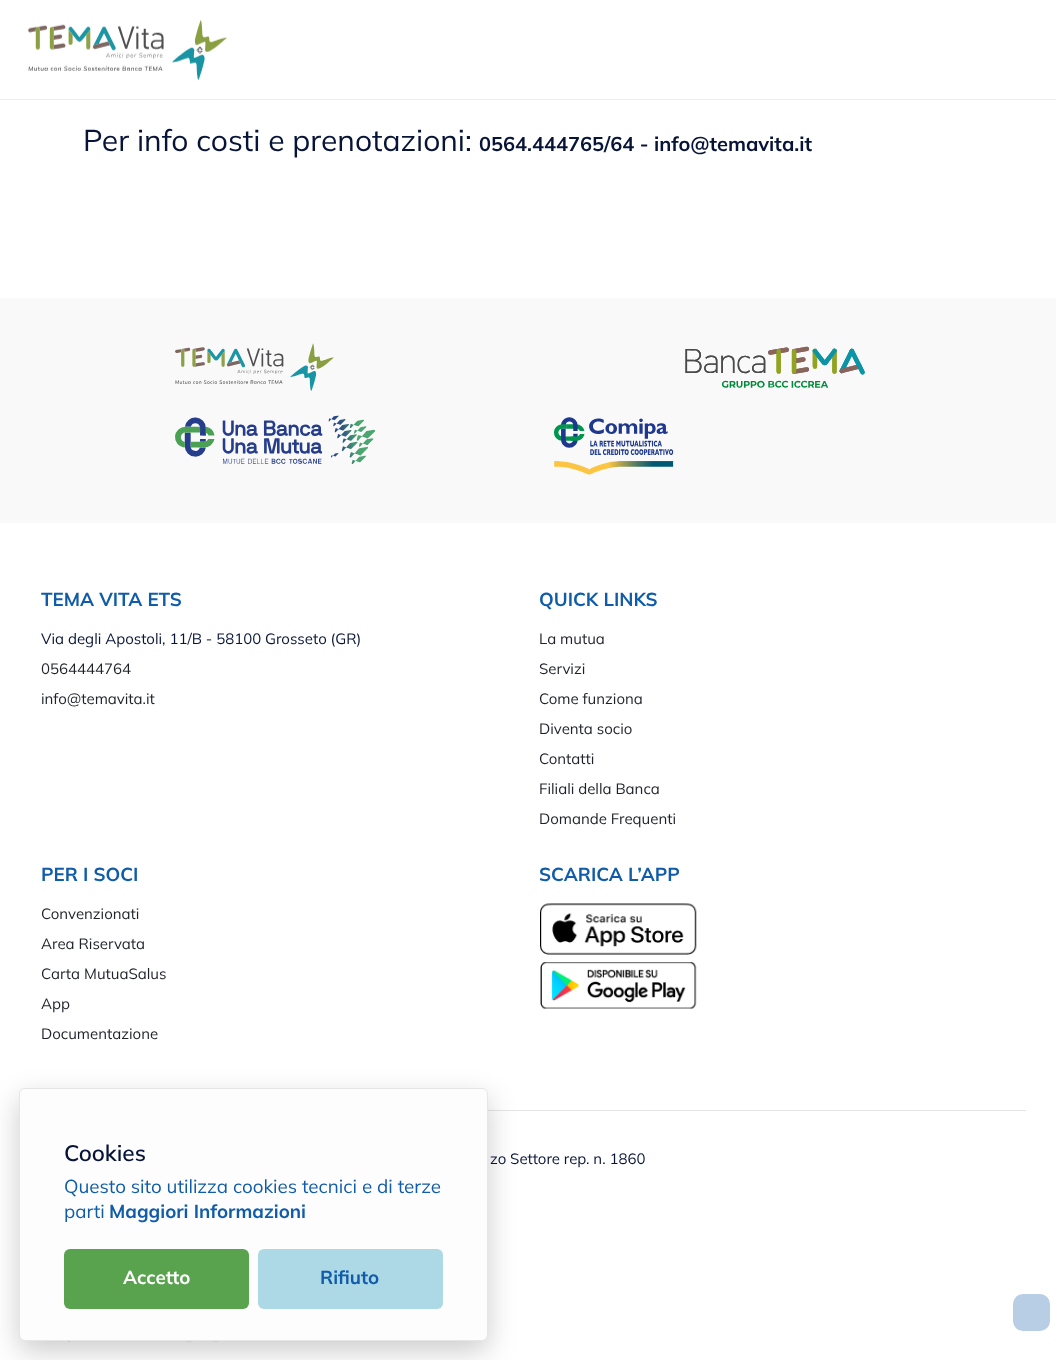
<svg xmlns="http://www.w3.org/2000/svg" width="1056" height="1360">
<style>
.a{font:30px Mulish;fill:#071437}
.b{font:bold 20px Mulish;fill:#071437}
.c{font:bold 18.75px Mulish;fill:#105ca8}
.d{font:15px Mulish;fill:#071437}
.e{font:15px Mulish;fill:#1e2129}
.f{font:600 22.5px Mulish;fill:#071437}
.g{font:18.75px Mulish;fill:#105ca8}
.h{font:bold 18.75px Mulish;fill:#fff}
</style>
<rect width="100%" height="100%" fill="#fff"/>
<path fill="#ecedf2" d="M0 99h1056v1H0z"/>
<image href="1.png" x="28" y="19" width="199" height="61"/>
<path fill="#f9f9f9" d="M0 298h1056v225H0z"/>
<image href="2.png" x="175" y="343" width="159" height="48"/>
<image href="3.png" x="685" y="346" width="180" height="42"/>
<image href="4.png" x="175" y="415" width="201" height="50"/>
<image href="5.png" x="554" y="417" width="120" height="58"/>
<image href="6.png" x="540" y="903" width="157" height="52"/>
<image href="7.png" x="540" y="962" width="157" height="47"/>
<path fill="#e5e5e5" d="M488 1110h538v1H488z"/>
<image href="8.png" x="68" y="1341" width="2" height="1"/>
<image href="9.png" x="185" y="1341" width="34" height="1"/>
<rect fill="#02020333" filter="blur(14px)" x="19" y="1098" width="469" height="253" rx="6"/>
<rect fill="#fdfdfd" stroke="#e6e6e6" x="19.5" y="1088.5" width="468" height="252" rx="5.5"/>
<rect fill="#59a34f" x="64" y="1249" width="185" height="60" rx="6"/>
<rect fill="#add8e6" x="258" y="1249" width="185" height="60" rx="6"/>
<rect fill="#b7cee5" x="1013" y="1294" width="37" height="37" rx="10"/>
<text class="a" x="83" y="151">Per info costi e prenotazioni:</text>
<text class="b" x="479" y="151">0564.444765/64 - info@temavita.it</text>
<text class="c" x="41" y="606">TEMA VITA ETS</text>
<text class="d" x="41" y="644">Via degli Apostoli, 11/B - 58100 Grosseto (GR)</text>
<text class="e" x="41" y="674">0564444764</text>
<text class="e" x="41" y="704">info@temavita.it</text>
<text class="c" x="539" y="606">QUICK LINKS</text>
<text class="e" x="539" y="644">La mutua</text>
<text class="e" x="539" y="674">Servizi</text>
<text class="e" x="539" y="704">Come funziona</text>
<text class="e" x="539" y="734">Diventa socio</text>
<text class="e" x="539" y="764">Contatti</text>
<text class="e" x="539" y="794">Filiali della Banca</text>
<text class="e" x="539" y="824">Domande Frequenti</text>
<text class="c" x="41" y="881">PER I SOCI</text>
<text class="e" x="41" y="919">Convenzionati</text>
<text class="e" x="41" y="949">Area Riservata</text>
<text class="e" x="41" y="979">Carta MutuaSalus</text>
<text class="e" x="41" y="1009">App</text>
<text class="e" x="41" y="1039">Documentazione</text>
<text class="c" x="539" y="881">SCARICA L’APP</text>
<text class="d" x="490" y="1164">zo Settore rep. n. 1860</text>
<text class="f" x="64" y="1161">Cookies</text>
<text class="g" x="64" y="1193">Questo sito utilizza cookies tecnici e di terze</text>
<text class="g" x="64" y="1218">parti</text>
<text class="c" x="109" y="1218">Maggiori Informazioni</text>
<text class="h" x="123" y="1284">Accetto</text>
<text class="c" x="320" y="1284">Rifiuto</text>
</svg>
